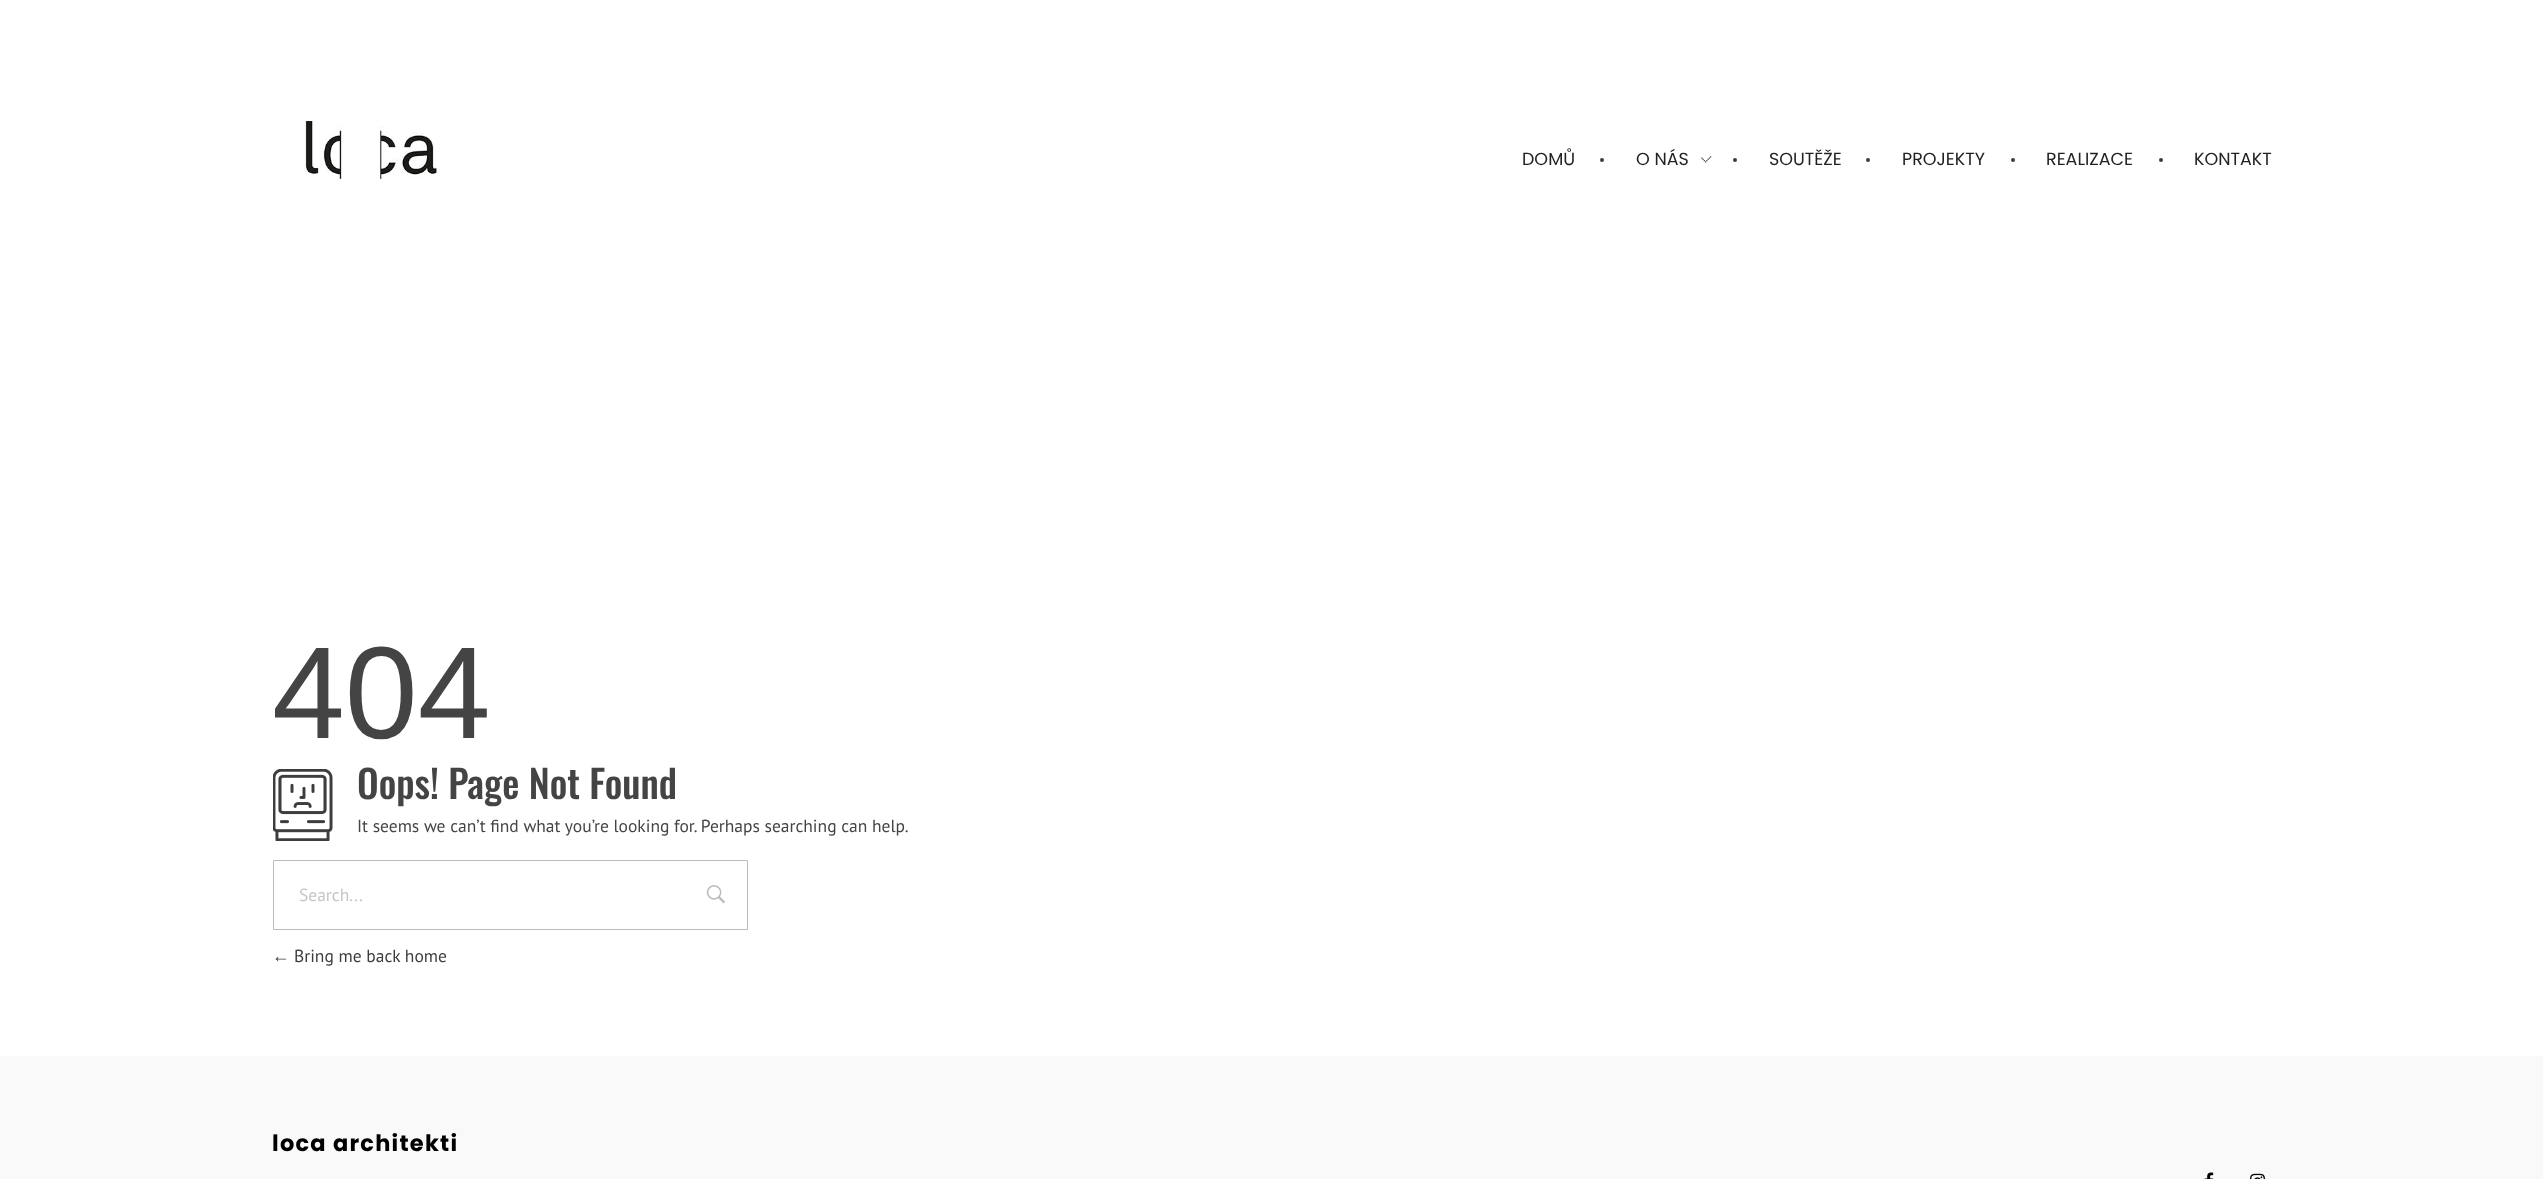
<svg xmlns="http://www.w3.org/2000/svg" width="2543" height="1179">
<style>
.a{font:17.5px Poppins;fill:#222}
.b{font:131px Liberation Sans;fill:#444}
.c{font:500 38.5px Oswald;fill:#444}
.d{font:17.5px PT Sans;fill:#444}
.e{font:17.5px PT Sans;fill:#c5c5c5}
.f{font:17.5px Liberation Sans;fill:#3d3d3d}
.g{font:17.5px PT Sans;fill:#3d3d3d}
.h{font:bold 22.5px Poppins;letter-spacing:1.25px;fill:#000}
</style>
<rect width="100%" height="100%" fill="#fff"/>
<image href="1.png" x="304" y="121" width="133" height="58"/>
<circle fill="#3d3d3d" cx="1602" cy="160" r="2"/>
<image href="2.png" x="1701" y="156" width="11" height="7"/>
<circle fill="#3d3d3d" cx="1735" cy="160" r="2"/>
<circle fill="#3d3d3d" cx="1868" cy="160" r="2"/>
<circle fill="#3d3d3d" cx="2013" cy="160" r="2"/>
<circle fill="#3d3d3d" cx="2161" cy="160" r="2"/>
<image href="3.png" x="273" y="769" width="60" height="72"/>
<path fill="none" stroke="#bbb" d="M273.5 860.5h474v69H273.5z"/>
<image href="4.png" x="706" y="885" width="19" height="19"/>
<path fill="#f9f9f9" d="M0 1056h2543v123H0z"/>
<image href="5.png" x="2204" y="1172" width="10" height="7"/>
<image href="6.png" x="2250" y="1173" width="15" height="6"/>
<text class="a" x="1522" y="165">DOMŮ</text>
<text class="a" x="1636" y="165">O NÁS</text>
<text class="a" x="1769" y="165">SOUTĚŽE</text>
<text class="a" x="1902" y="165">PROJEKTY</text>
<text class="a" x="2046" y="165">REALIZACE</text>
<text class="a" x="2194" y="165">KONTAKT</text>
<text class="b" x="272" y="738">404</text>
<text class="c" x="357" y="799">Oops! Page Not Found</text>
<text class="d" x="357" y="832">It seems we can’t find what you’re looking for. Perhaps searching can help.</text>
<text class="e" x="299" y="901">Search...</text>
<text class="f" x="272" y="962">←</text>
<text class="g" x="294" y="962">Bring me back home</text>
<text class="h" x="272" y="1151">loca architekti</text>
</svg>
